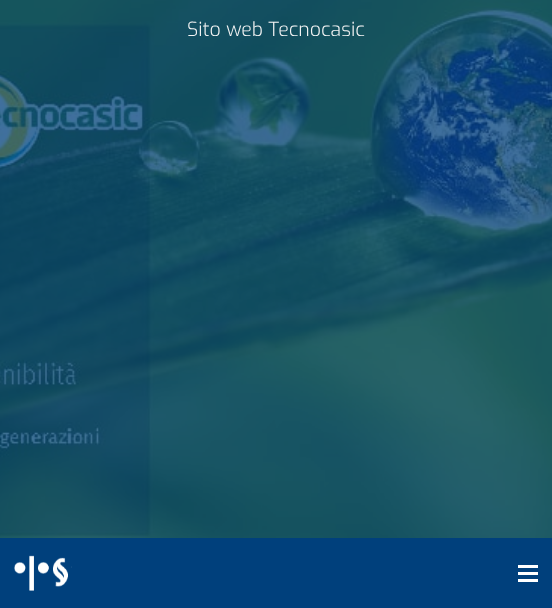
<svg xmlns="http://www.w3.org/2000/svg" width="552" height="608">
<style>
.a{font:300 19.5px Exo;fill:#f5f5f5}
</style>
<rect width="100%" height="100%" fill="#00407c"/>
<image href="1.png" x="0" y="0" width="552" height="538"/>
<image href="2.png" x="14" y="555" width="58" height="36"/>
<path fill="#fff" d="M518 572h20v3H518z"/>
<path fill="#fff" d="M518 565h20v3H518z"/>
<path fill="#fff" d="M518 579h20v3H518z"/>
<text class="a" x="187" y="36">Sito web Tecnocasic</text>
</svg>
